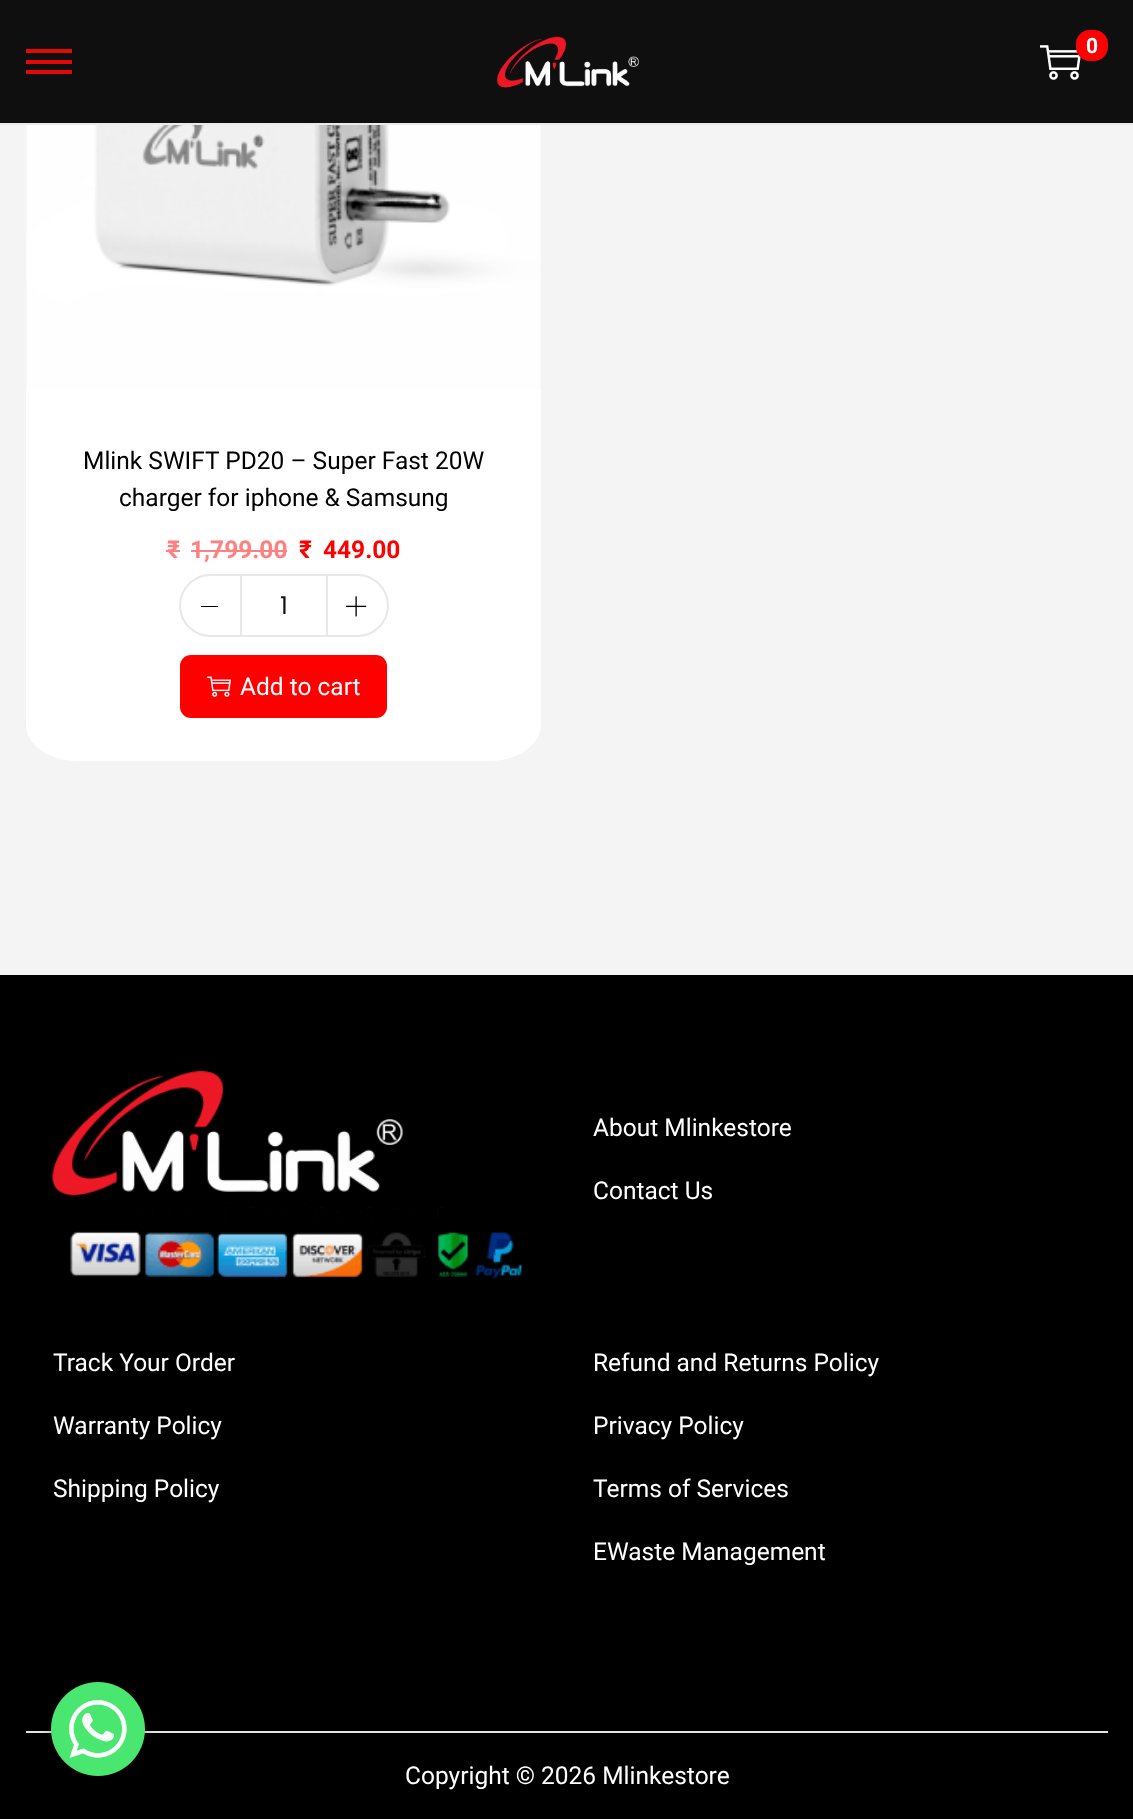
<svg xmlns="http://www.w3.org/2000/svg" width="1133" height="1819">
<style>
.a{font:bold 21px Roboto;fill:#fff}
.b{font:24.5px Roboto;fill:#000}
.c{font:bold 24.5px Roboto;fill:#ff8080}
.d{font:bold 24.5px Roboto;fill:#f00}
.e{font:24.5px Poppins;fill:#101010}
.f{font:24.5px Roboto;fill:#fff}
</style>
<rect width="100%" height="100%" fill="#f4f4f4"/>
<path fill="#0f0f0f" d="M0 0h1133v123H0z"/>
<path fill="#eaeaea" d="M0 123h1133v2H0z"/>
<image href="1.png" x="496" y="36" width="143" height="52"/>
<image href="2.png" x="1040" y="45" width="41" height="35"/>
<rect fill="#f00" x="1076" y="30" width="32" height="31" rx="14"/>
<path fill="#e50808" d="M26 60h46v4H26z"/>
<path fill="#e50808" d="M26 49h46v4H26z"/>
<path fill="#e50808" d="M26 70h46v4H26z"/>
<image href="3.png" x="26" y="125" width="515" height="265"/>
<path fill="#fff" d="M26 390h515v334c0 21-23 37-52 37h-411c-29 0-52-16-52-37z"/>
<path fill="#ff8080" d="M166 550h14v2H166z"/>
<path fill="#ff8080" d="M191 550h96v2H191z"/>
<rect fill="none" stroke="#e8e8e8" stroke-width="2" x="180" y="575" width="208" height="61" rx="30.5"/>
<path fill="#e8e8e8" d="M240 576h2v59H240z"/>
<path fill="#000" d="M201 606h17v1H201z"/>
<path fill="#e8e8e8" d="M326 576h2v59H326z"/>
<image href="4.png" x="346" y="596" width="21" height="21"/>
<rect fill="#f00" x="180" y="655" width="207" height="63" rx="11"/>
<image href="5.png" x="207" y="676" width="24" height="21"/>
<path fill="#000" d="M0 975h1133v844H0z"/>
<image href="6.png" x="52" y="1071" width="351" height="125"/>
<image href="7.png" x="70" y="1207" width="453" height="72"/>
<path fill="#e3e3e3" d="M26 1731h1082v2H26z"/>
<rect fill="#00000040" filter="blur(5px)" x="51" y="1687" width="94" height="95" rx="47"/>
<image href="8.png" x="51" y="1682" width="94" height="94"/>
<text class="a" x="1086" y="53">0</text>
<text class="b" x="83" y="469">Mlink SWIFT PD20 – Super Fast 20W</text>
<text class="b" x="119" y="506">charger for iphone &amp; Samsung</text>
<text class="c" x="167" y="558">₹</text>
<text class="c" x="190" y="558">1,799.00</text>
<text class="d" x="299" y="558">₹</text>
<text class="d" x="323" y="558">449.00</text>
<text class="e" x="280" y="614">1</text>
<text class="f" x="240" y="695">Add to cart</text>
<text class="f" x="593" y="1136">About Mlinkestore</text>
<text class="f" x="593" y="1199">Contact Us</text>
<text class="f" x="53" y="1371">Track Your Order</text>
<text class="f" x="53" y="1434">Warranty Policy</text>
<text class="f" x="53" y="1497">Shipping Policy</text>
<text class="f" x="593" y="1371">Refund and Returns Policy</text>
<text class="f" x="593" y="1434">Privacy Policy</text>
<text class="f" x="593" y="1497">Terms of Services</text>
<text class="f" x="593" y="1560">EWaste Management</text>
<text class="f" x="405" y="1784">Copyright © 2026 Mlinkestore</text>
</svg>
